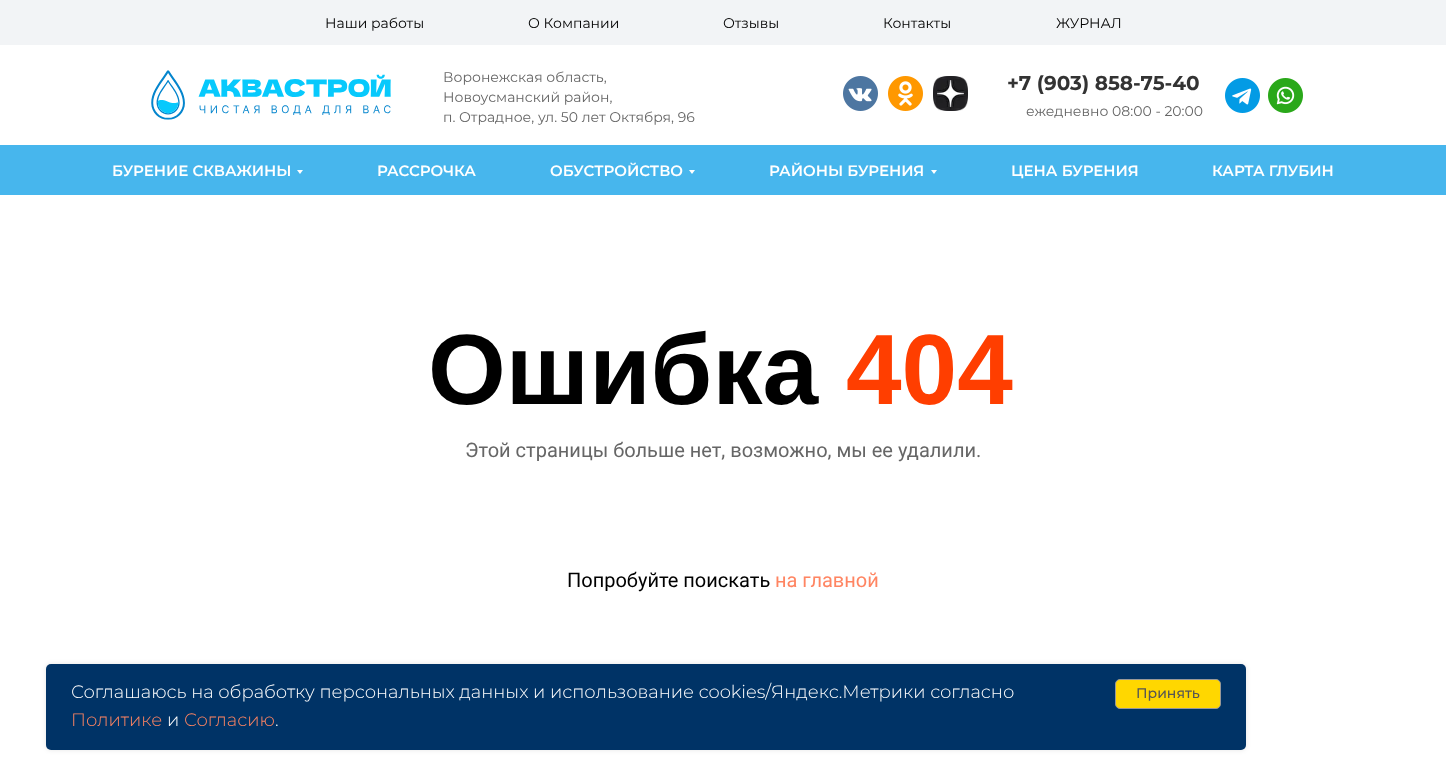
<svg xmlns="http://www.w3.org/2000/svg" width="1446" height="780">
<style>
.a{font:14px Montserrat;fill:#000}
.b{font:14px Montserrat;fill:#666}
.c{font:bold 20px Montserrat;fill:#333}
.d{font:600 15px Montserrat;fill:#fff}
.e{font:300 18px Montserrat;fill:#fff}
.f{font:300 18px Montserrat;fill:#ff8562}
.g{font:500 14px Montserrat;fill:#555}
.h{font:bold 100px Liberation Sans;fill:#000}
.i{font:bold 100px Liberation Sans;fill:#ff3e00}
.j{font:20px Roboto;fill:#666}
.k{font:20px Roboto;fill:#000}
.l{font:20px Roboto;fill:#ff8562}
</style>
<rect width="100%" height="100%" fill="#fff"/>
<path fill="#f2f4f6" d="M0 0h1446v45H0z"/>
<image href="1.png" x="151" y="70" width="240" height="50"/>
<image href="2.png" x="843" y="76" width="35" height="35"/>
<image href="3.png" x="888" y="76" width="35" height="35"/>
<image href="4.png" x="933" y="76" width="35" height="35"/>
<image href="5.png" x="1225" y="78" width="35" height="35"/>
<image href="6.png" x="1268" y="78" width="35" height="35"/>
<path fill="#47b6ed" d="M0 145h1446v50H0z"/>
<path fill="#fff" d="M297 170h6l-3 4z"/>
<path fill="#fff" d="M689 170h6l-3 4z"/>
<path fill="#fff" d="M931 170h6l-3 4z"/>
<rect fill="#0000001a" filter="blur(2.5px)" x="46" y="664" width="1200" height="86" rx="5"/>
<rect fill="#036" x="46" y="664" width="1200" height="86" rx="5"/>
<rect fill="#ffd700" stroke="#999" x="1115.5" y="679.5" width="105" height="29" rx="4.5"/>
<text class="a" x="325" y="28">Наши работы</text>
<text class="a" x="528" y="28">О Компании</text>
<text class="a" x="723" y="28">Отзывы</text>
<text class="a" x="883" y="28">Контакты</text>
<text class="a" x="1056" y="28">ЖУРНАЛ</text>
<text class="b" x="443" y="82">Воронежская область,</text>
<text class="b" x="443" y="102">Новоусманский район,</text>
<text class="b" x="443" y="122">п. Отрадное, ул. 50 лет Октября, 96</text>
<text class="c" x="1007" y="90">+7 (903) 858-75-40</text>
<text class="b" x="1026" y="116">ежедневно 08:00 - 20:00</text>
<text class="d" x="112" y="176">БУРЕНИЕ СКВАЖИНЫ</text>
<text class="d" x="377" y="176">РАССРОЧКА</text>
<text class="d" x="550" y="176">ОБУСТРОЙСТВО</text>
<text class="d" x="769" y="176">РАЙОНЫ БУРЕНИЯ</text>
<text class="d" x="1011" y="176">ЦЕНА БУРЕНИЯ</text>
<text class="d" x="1212" y="176">КАРТА ГЛУБИН</text>
<text class="e" x="71" y="698">Соглашаюсь на обработку персональных данных и использование cookies/Яндекс.Метрики согласно</text>
<text class="f" x="71" y="726">Политике</text>
<text class="e" x="167" y="726">и</text>
<text class="f" x="184" y="726">Согласию</text>
<text class="e" x="275" y="726">.</text>
<text class="g" x="1136" y="698">Принять</text>
<text class="h" x="428" y="404">Ошибка</text>
<text class="i" x="846" y="404">404</text>
<text class="j" x="465" y="457">Этой страницы больше нет, возможно, мы ее удалили.</text>
<text class="k" x="567" y="587">Попробуйте поискать</text>
<text class="l" x="775" y="587">на главной</text>
</svg>
